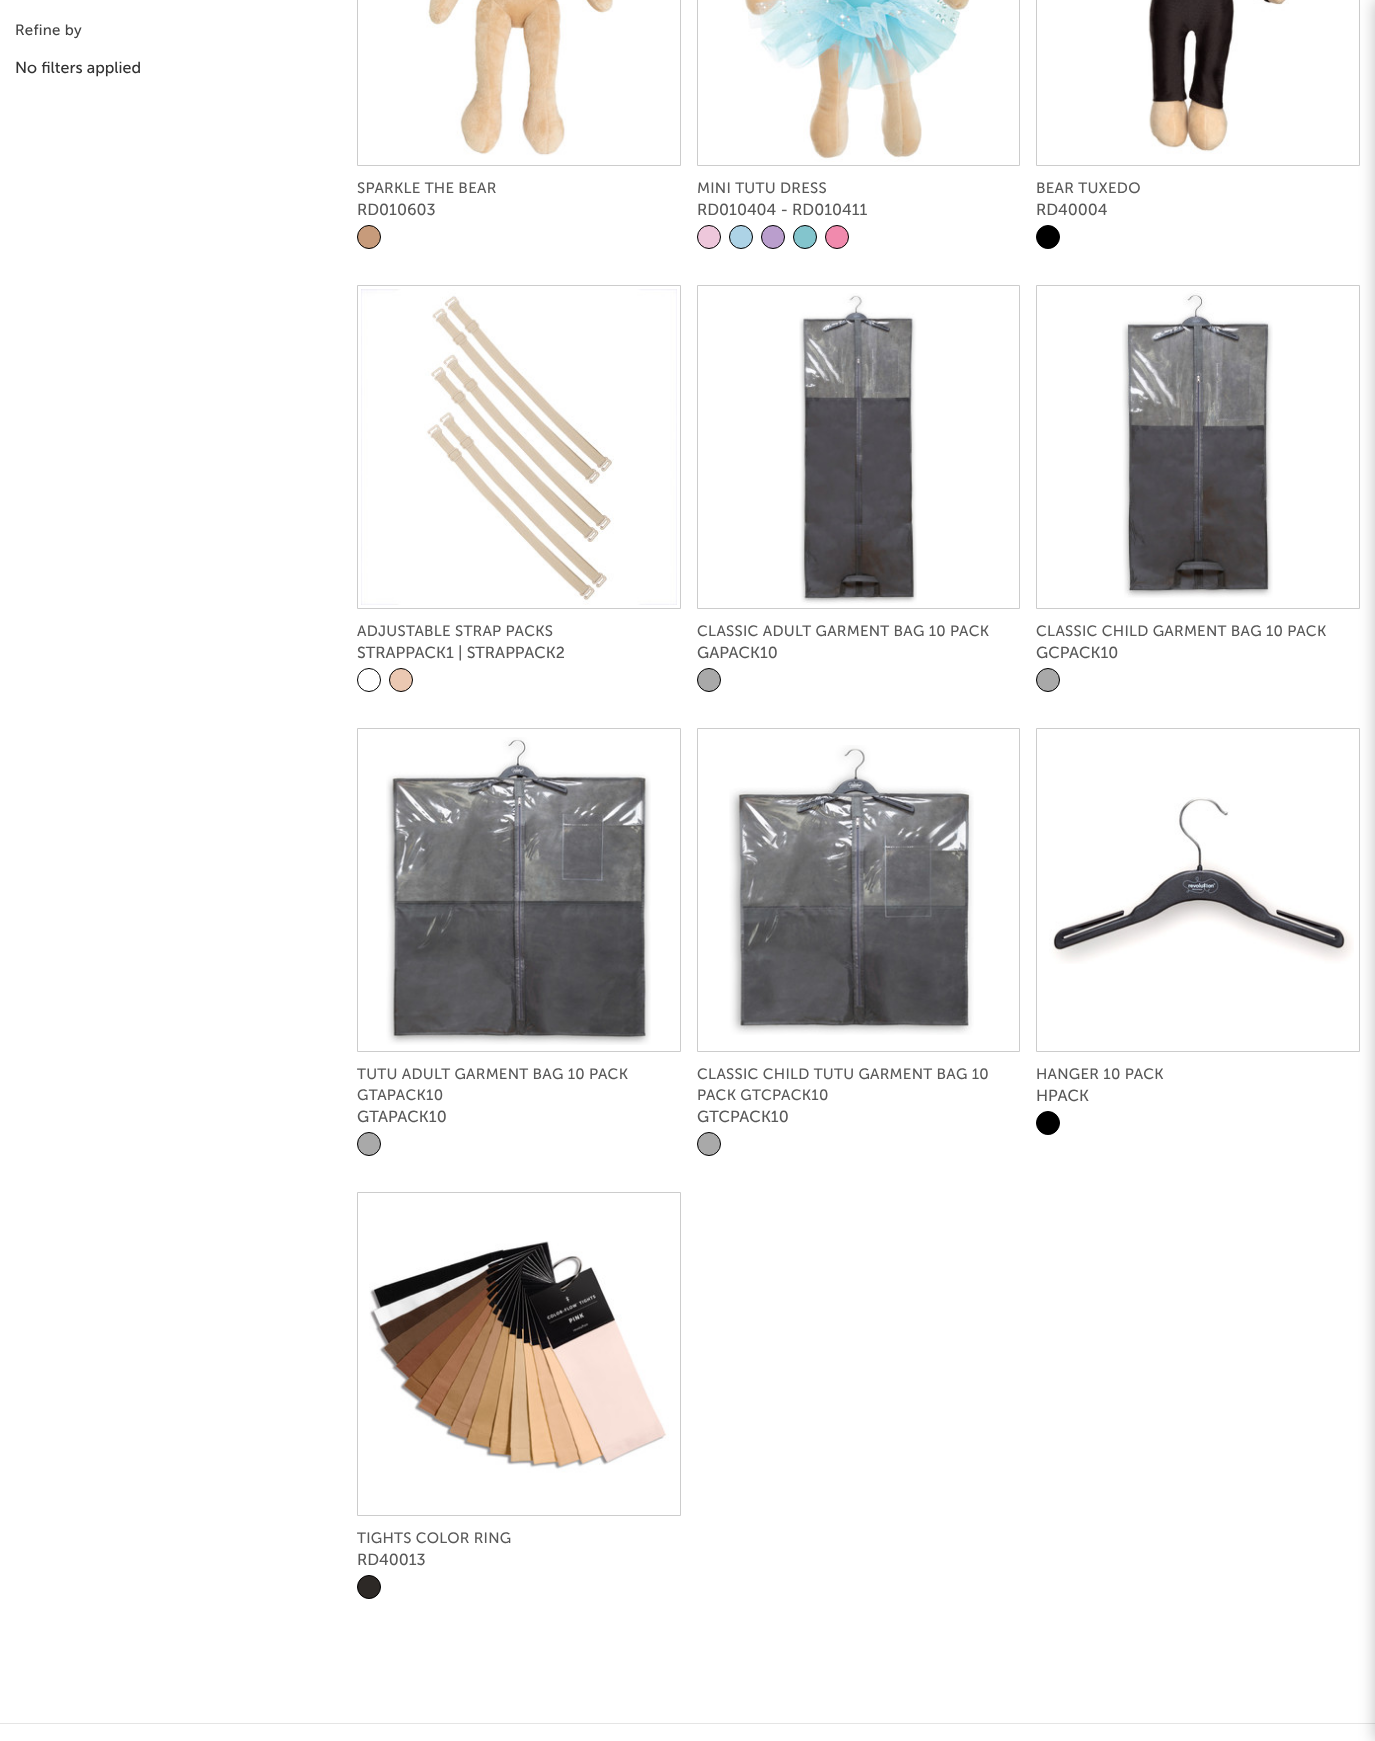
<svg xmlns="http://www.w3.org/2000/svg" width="1375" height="1741">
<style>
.a{font:15px Museo Sans;letter-spacing:0.25px;fill:#444}
.b{font:16px Museo Sans;fill:#333}
.c{font:15px Museo Sans;letter-spacing:0.25px;fill:#595959}
.d{font:16px Museo Sans;fill:#595959}
</style>
<rect width="100%" height="100%" fill="#fff"/>
<path fill="none" stroke="#ccc" d="M357.5 -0.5h323v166H357.5z"/>
<image href="1.png" x="426" y="0" width="188" height="156"/>
<circle fill="#c79b7b" stroke="#000" cx="369" cy="237" r="11.5"/>
<path fill="none" stroke="#ccc" d="M697.5 -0.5h322v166H697.5z"/>
<image href="2.png" x="742" y="0" width="228" height="162"/>
<circle fill="#eec7db" stroke="#000" cx="709" cy="237" r="11.5"/>
<circle fill="#add3e6" stroke="#000" cx="741" cy="237" r="11.5"/>
<circle fill="#ba9ecd" stroke="#000" cx="773" cy="237" r="11.5"/>
<circle fill="#83c5cd" stroke="#000" cx="805" cy="237" r="11.5"/>
<circle fill="#f18aad" stroke="#000" cx="837" cy="237" r="11.5"/>
<path fill="none" stroke="#ccc" d="M1036.5 -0.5h323v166H1036.5z"/>
<image href="3.png" x="1148" y="0" width="141" height="154"/>
<circle fill="#000" stroke="#000" cx="1048" cy="237" r="11.5"/>
<path fill="none" stroke="#ccc" d="M357.5 285.5h323v323H357.5z"/>
<image href="4.png" x="361" y="289" width="316" height="316"/>
<circle fill="none" stroke="#000" cx="369" cy="680" r="11.5"/>
<circle fill="#ebc8b2" stroke="#000" cx="401" cy="680" r="11.5"/>
<path fill="none" stroke="#ccc" d="M697.5 285.5h322v323H697.5z"/>
<image href="5.png" x="799" y="293" width="118" height="312"/>
<circle fill="#a9a9a9" stroke="#000" cx="709" cy="680" r="11.5"/>
<path fill="none" stroke="#ccc" d="M1036.5 285.5h323v323H1036.5z"/>
<image href="6.png" x="1122" y="290" width="151" height="308"/>
<circle fill="#a9a9a9" stroke="#000" cx="1048" cy="680" r="11.5"/>
<path fill="none" stroke="#ccc" d="M357.5 728.5h323v323H357.5z"/>
<image href="7.png" x="386" y="737" width="265" height="308"/>
<circle fill="#a9a9a9" stroke="#000" cx="369" cy="1144" r="11.5"/>
<path fill="none" stroke="#ccc" d="M697.5 728.5h322v323H697.5z"/>
<image href="8.png" x="729" y="745" width="245" height="290"/>
<circle fill="#a9a9a9" stroke="#000" cx="709" cy="1144" r="11.5"/>
<path fill="none" stroke="#ccc" d="M1036.5 728.5h323v323H1036.5z"/>
<image href="9.png" x="1049" y="797" width="305" height="167"/>
<circle fill="#000" stroke="#000" cx="1048" cy="1123" r="11.5"/>
<path fill="none" stroke="#ccc" d="M357.5 1192.5h323v323H357.5z"/>
<image href="10.png" x="369" y="1241" width="300" height="232"/>
<circle fill="#2d2926" stroke="#000" cx="369" cy="1587" r="11.5"/>
<path fill="#e5e5e5" d="M0 1723h1375v1H0z"/>
<path fill="#00000040" filter="blur(8px)" d="M1375 0h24v1741H1375z"/>
<text class="a" x="15" y="35">Refine by</text>
<text class="b" x="15" y="73">No filters applied</text>
<text class="c" x="357" y="193">SPARKLE THE BEAR</text>
<text class="d" x="357" y="215">RD010603</text>
<text class="c" x="697" y="193">MINI TUTU DRESS</text>
<text class="d" x="697" y="215">RD010404 - RD010411</text>
<text class="c" x="1036" y="193">BEAR TUXEDO</text>
<text class="d" x="1036" y="215">RD40004</text>
<text class="c" x="357" y="636">ADJUSTABLE STRAP PACKS</text>
<text class="d" x="357" y="658">STRAPPACK1 | STRAPPACK2</text>
<text class="c" x="697" y="636">CLASSIC ADULT GARMENT BAG 10 PACK</text>
<text class="d" x="697" y="658">GAPACK10</text>
<text class="c" x="1036" y="636">CLASSIC CHILD GARMENT BAG 10 PACK</text>
<text class="d" x="1036" y="658">GCPACK10</text>
<text class="c" x="357" y="1079">TUTU ADULT GARMENT BAG 10 PACK</text>
<text class="c" x="357" y="1100">GTAPACK10</text>
<text class="d" x="357" y="1122">GTAPACK10</text>
<text class="c" x="697" y="1079">CLASSIC CHILD TUTU GARMENT BAG 10</text>
<text class="c" x="697" y="1100">PACK GTCPACK10</text>
<text class="d" x="697" y="1122">GTCPACK10</text>
<text class="c" x="1036" y="1079">HANGER 10 PACK</text>
<text class="d" x="1036" y="1101">HPACK</text>
<text class="c" x="357" y="1543">TIGHTS COLOR RING</text>
<text class="d" x="357" y="1565">RD40013</text>
</svg>
